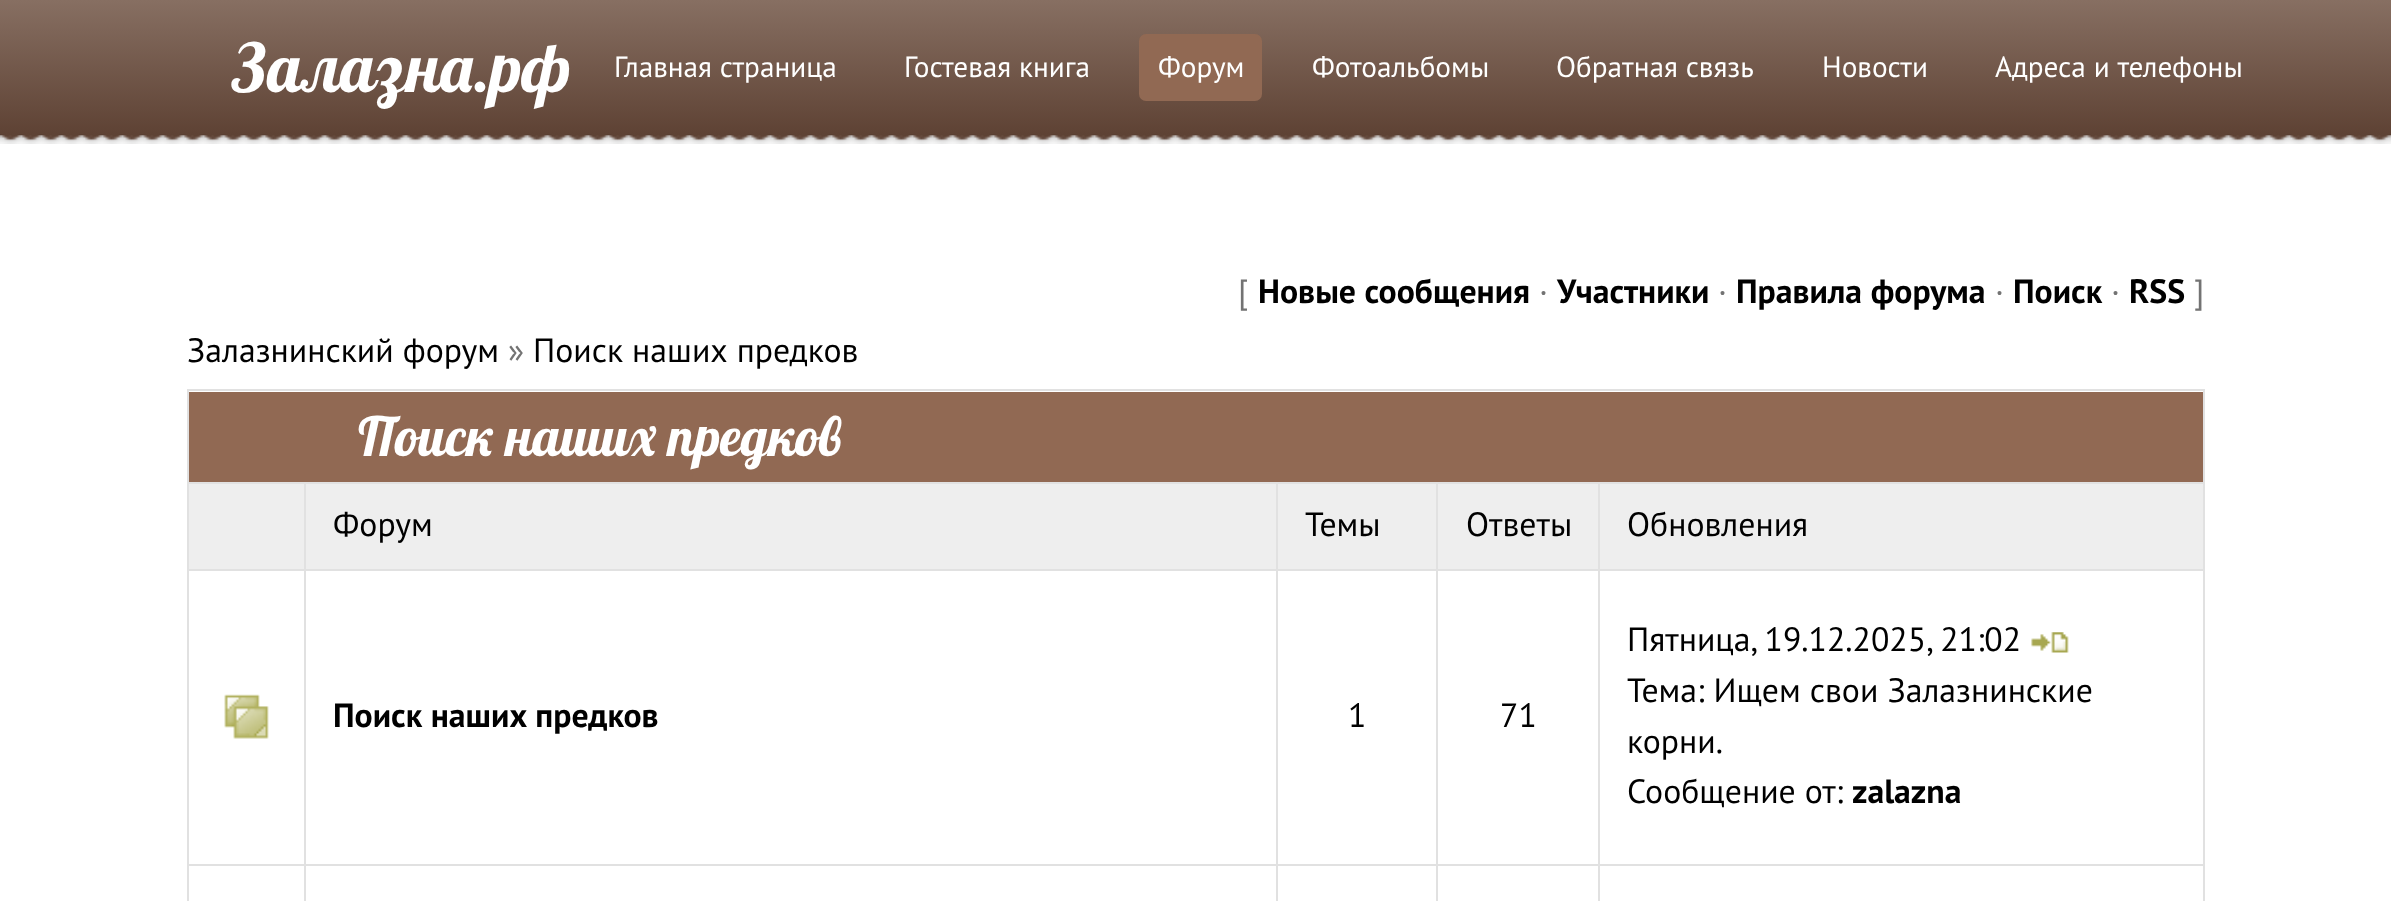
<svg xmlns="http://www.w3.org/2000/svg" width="2391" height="901">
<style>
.a{font:67.5px Lobster;fill:#fff}
.b{font:29.25px PT Sans;fill:#fff}
.c{font:33.75px PT Sans;fill:#737373}
.d{font:bold 33.75px PT Sans;fill:#000}
.e{font:33.75px PT Sans;fill:#000}
.f{font:54px Lobster;fill:#fff}
</style>
<defs>
<linearGradient id="g1" gradientUnits="userSpaceOnUse" x1="0" y1="135" x2="0" y2="0"><stop offset="0" stop-color="#5e4234"/><stop offset="1" stop-color="#876f62"/></linearGradient>
</defs>
<rect width="100%" height="100%" fill="#fff"/>
<path fill="url(#g1)" d="M0 0h2391v135H0z"/>
<rect fill="#916953" x="1139" y="34" width="123" height="67" rx="7"/>
<image href="1.png" x="0" y="134" width="2391" height="10"/>
<path fill="none" stroke="#e1e1e1" stroke-width="2" d="M188 390h2016v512H188z"/>
<path fill="#916953" d="M189 392h2014v90H189z"/>
<path fill="#eee" d="M189 484h115v85H189z"/>
<path fill="#e1e1e1" d="M1598 482h605v2H1598z"/>
<path fill="#e1e1e1" d="M1598 569h605v2H1598z"/>
<path fill="#e1e1e1" d="M1598 864h605v2H1598z"/>
<path fill="#e1e1e1" d="M1598 864h2v37H1598z"/>
<path fill="#e1e1e1" d="M1436 864h164v2H1436z"/>
<path fill="#e1e1e1" d="M1598 569h2v297H1598z"/>
<path fill="#e1e1e1" d="M1436 569h164v2H1436z"/>
<path fill="#e1e1e1" d="M1598 482h2v90H1598z"/>
<path fill="#e1e1e1" d="M1436 482h164v2H1436z"/>
<path fill="#e1e1e1" d="M1436 864h2v37H1436z"/>
<path fill="#e1e1e1" d="M1276 864h162v2H1276z"/>
<path fill="#e1e1e1" d="M1436 569h2v297H1436z"/>
<path fill="#e1e1e1" d="M1276 569h162v2H1276z"/>
<path fill="#e1e1e1" d="M1436 482h2v90H1436z"/>
<path fill="#e1e1e1" d="M1276 482h162v2H1276z"/>
<path fill="#e1e1e1" d="M1276 864h2v37H1276z"/>
<path fill="#e1e1e1" d="M304 864h974v2H304z"/>
<path fill="#e1e1e1" d="M1276 569h2v297H1276z"/>
<path fill="#e1e1e1" d="M304 569h974v2H304z"/>
<path fill="#e1e1e1" d="M1276 482h2v90H1276z"/>
<path fill="#e1e1e1" d="M304 482h974v2H304z"/>
<path fill="#e1e1e1" d="M304 864h2v37H304z"/>
<path fill="#e1e1e1" d="M189 864h117v2H189z"/>
<path fill="#e1e1e1" d="M304 569h2v297H304z"/>
<path fill="#e1e1e1" d="M189 569h117v2H189z"/>
<path fill="#e1e1e1" d="M304 482h2v90H304z"/>
<path fill="#e1e1e1" d="M189 482h117v2H189z"/>
<path fill="#eee" d="M306 484h970v85H306z"/>
<path fill="#eee" d="M1278 484h158v85H1278z"/>
<path fill="#eee" d="M1438 484h160v85H1438z"/>
<path fill="#eee" d="M1600 484h603v85H1600z"/>
<image href="2.png" x="224" y="694" width="45" height="45"/>
<image href="3.png" x="2031" y="632" width="38" height="21"/>
<text class="a" x="232" y="92">Залазна.рф</text>
<text class="b" x="614" y="77">Главная страница</text>
<text class="b" x="904" y="77">Гостевая книга</text>
<text class="b" x="1158" y="77">Форум</text>
<text class="b" x="1312" y="77">Фотоальбомы</text>
<text class="b" x="1556" y="77">Обратная связь</text>
<text class="b" x="1822" y="77">Новости</text>
<text class="b" x="1995" y="77">Адреса и телефоны</text>
<text class="c" x="1238" y="303">[</text>
<text class="d" x="1258" y="303">Новые сообщения</text>
<text class="c" x="1539" y="303">·</text>
<text class="d" x="1557" y="303">Участники</text>
<text class="c" x="1718" y="303">·</text>
<text class="d" x="1736" y="303">Правила форума</text>
<text class="c" x="1995" y="303">·</text>
<text class="d" x="2013" y="303">Поиск</text>
<text class="c" x="2111" y="303">·</text>
<text class="d" x="2129" y="303">RSS</text>
<text class="c" x="2194" y="303">]</text>
<text class="e" x="187" y="362">Залазнинский форум</text>
<text class="c" x="508" y="362">»</text>
<text class="e" x="533" y="362">Поиск наших предков</text>
<text class="f" x="358" y="456">Поиск наших предков</text>
<text class="e" x="333" y="536">Форум</text>
<text class="e" x="1305" y="536">Темы</text>
<text class="e" x="1466" y="536">Ответы</text>
<text class="e" x="1627" y="536">Обновления</text>
<text class="d" x="333" y="727">Поиск наших предков</text>
<text class="e" x="1348" y="727">1</text>
<text class="e" x="1500" y="727">71</text>
<text class="e" x="1627" y="651">Пятница, 19.12.2025, 21:02</text>
<text class="e" x="1627" y="702">Тема: Ищем свои Залазнинские</text>
<text class="e" x="1627" y="753">корни.</text>
<text class="e" x="1627" y="803">Сообщение от:</text>
<text class="d" x="1852" y="803">zalazna</text>
</svg>
